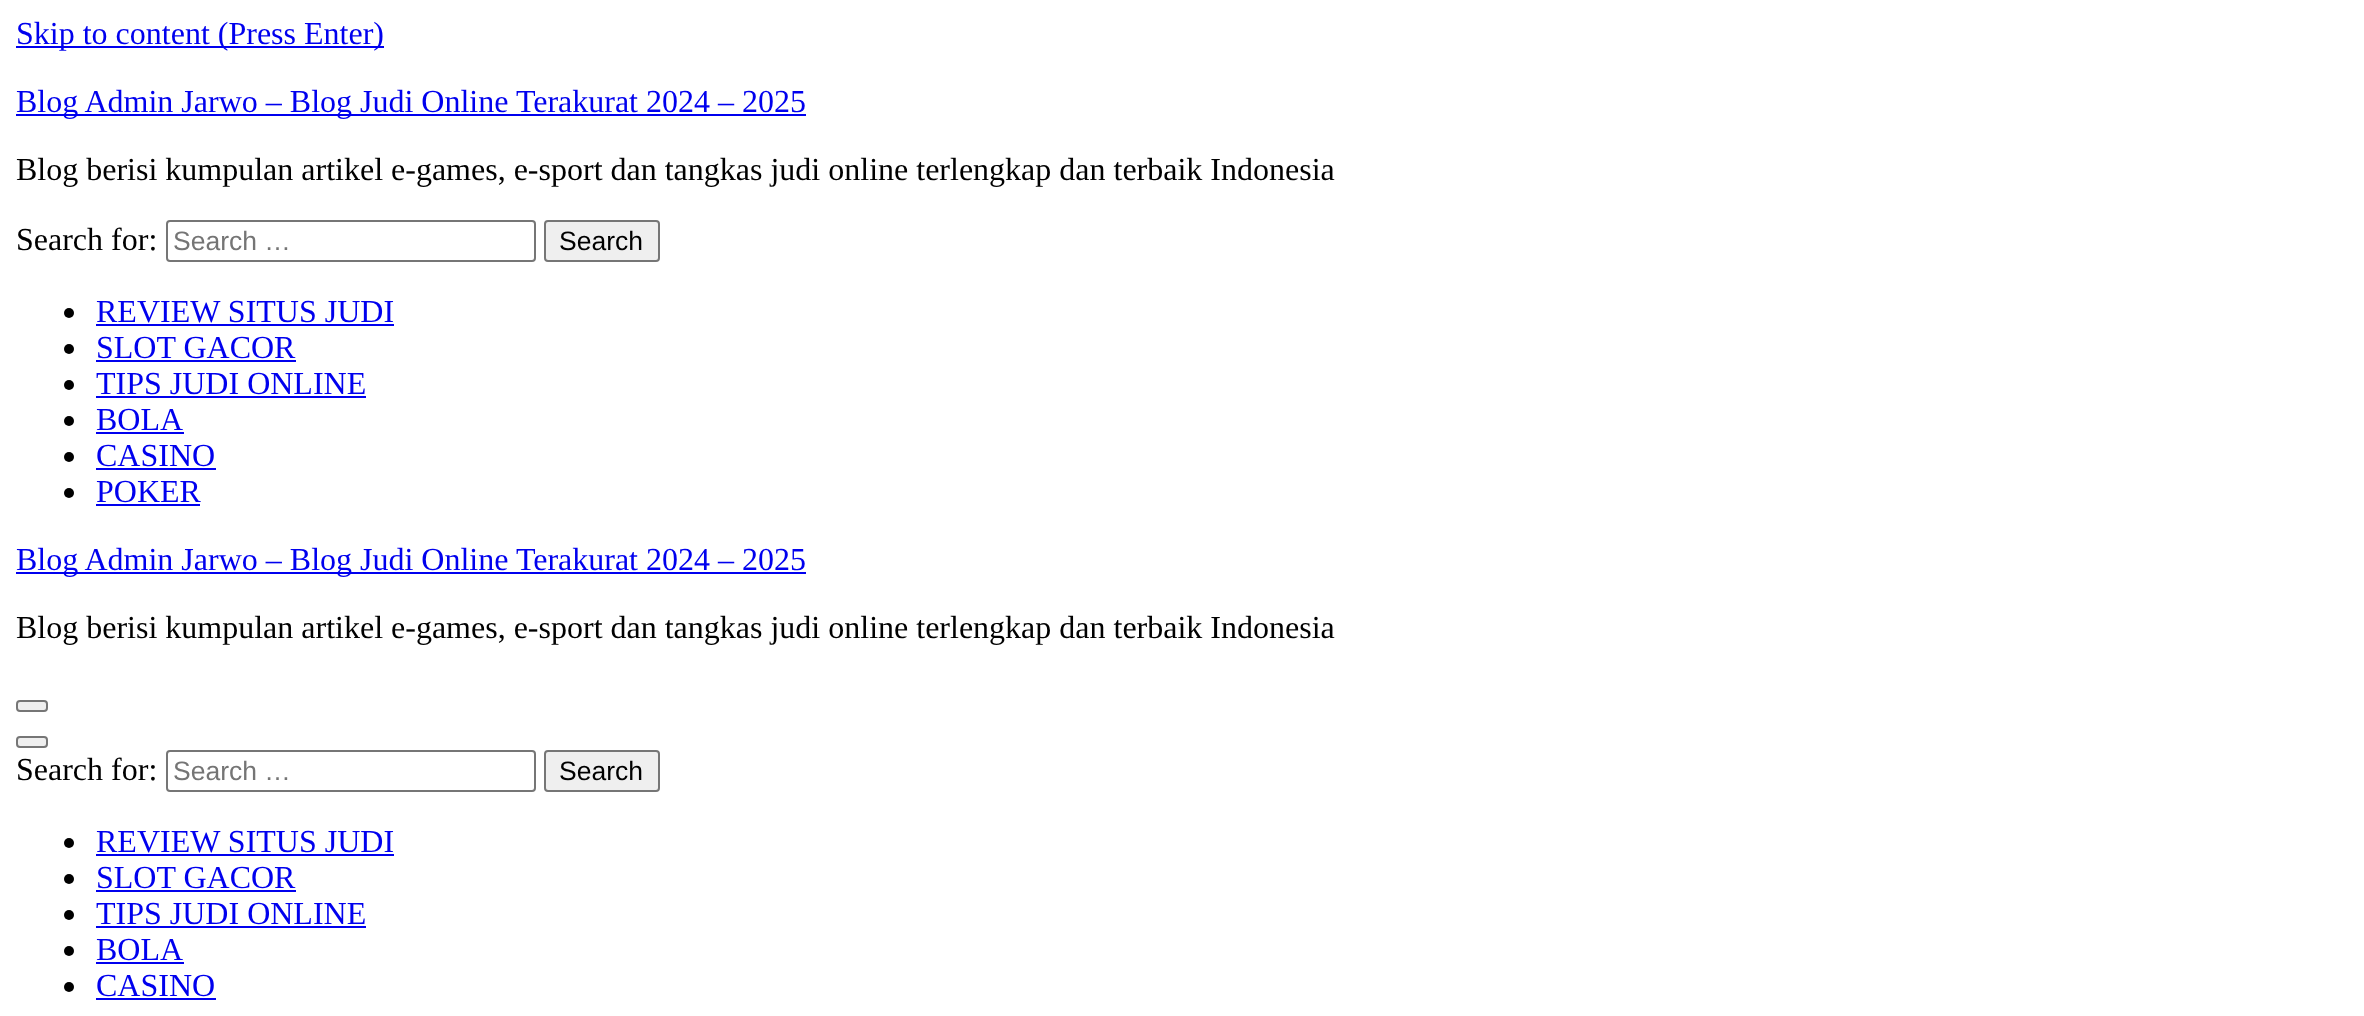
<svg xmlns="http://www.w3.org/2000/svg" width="2364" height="1016">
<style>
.a{font:32px Liberation Serif;fill:#00e}
.b{font:32px Liberation Serif;fill:#000}
.c{font:26.5px Liberation Sans;fill:#757575}
.d{font:26.5px Liberation Sans;fill:#000}
</style>
<rect width="100%" height="100%" fill="#fff"/>
<path fill="#00e" d="M16 46h368v2H16z"/>
<path fill="#00e" d="M16 114h790v2H16z"/>
<rect fill="none" stroke="#767676" stroke-width="2" x="167" y="221" width="368" height="40" rx="3"/>
<rect fill="#efefef" stroke="#767676" stroke-width="2" x="545" y="221" width="114" height="40" rx="3"/>
<circle fill="#000" cx="69" cy="313" r="5"/>
<path fill="#00e" d="M96 324h298v2H96z"/>
<circle fill="#000" cx="69" cy="349" r="5"/>
<path fill="#00e" d="M96 360h200v2H96z"/>
<circle fill="#000" cx="69" cy="385" r="5"/>
<path fill="#00e" d="M96 396h270v2H96z"/>
<circle fill="#000" cx="69" cy="421" r="5"/>
<path fill="#00e" d="M96 432h88v2H96z"/>
<circle fill="#000" cx="69" cy="457" r="5"/>
<path fill="#00e" d="M96 468h120v2H96z"/>
<circle fill="#000" cx="69" cy="493" r="5"/>
<path fill="#00e" d="M96 504h104v2H96z"/>
<path fill="#00e" d="M16 572h790v2H16z"/>
<rect fill="#efefef" stroke="#767676" stroke-width="2" x="17" y="701" width="30" height="10" rx="3"/>
<rect fill="#efefef" stroke="#767676" stroke-width="2" x="17" y="737" width="30" height="10" rx="3"/>
<rect fill="none" stroke="#767676" stroke-width="2" x="167" y="751" width="368" height="40" rx="3"/>
<rect fill="#efefef" stroke="#767676" stroke-width="2" x="545" y="751" width="114" height="40" rx="3"/>
<circle fill="#000" cx="69" cy="843" r="5"/>
<path fill="#00e" d="M96 854h298v2H96z"/>
<circle fill="#000" cx="69" cy="879" r="5"/>
<path fill="#00e" d="M96 890h200v2H96z"/>
<circle fill="#000" cx="69" cy="915" r="5"/>
<path fill="#00e" d="M96 926h270v2H96z"/>
<circle fill="#000" cx="69" cy="951" r="5"/>
<path fill="#00e" d="M96 962h88v2H96z"/>
<circle fill="#000" cx="69" cy="987" r="5"/>
<path fill="#00e" d="M96 998h120v2H96z"/>
<text class="a" x="16" y="44">Skip to content (Press Enter)</text>
<text class="a" x="16" y="112">Blog Admin Jarwo – Blog Judi Online Terakurat 2024 – 2025</text>
<text class="b" x="16" y="180">Blog berisi kumpulan artikel e-games, e-sport dan tangkas judi online terlengkap dan terbaik Indonesia</text>
<text class="b" x="16" y="250">Search for:</text>
<text class="c" x="173" y="250">Search …</text>
<text class="d" x="559" y="250">Search</text>
<text class="a" x="96" y="322">REVIEW SITUS JUDI</text>
<text class="a" x="96" y="358">SLOT GACOR</text>
<text class="a" x="96" y="394">TIPS JUDI ONLINE</text>
<text class="a" x="96" y="430">BOLA</text>
<text class="a" x="96" y="466">CASINO</text>
<text class="a" x="96" y="502">POKER</text>
<text class="a" x="16" y="570">Blog Admin Jarwo – Blog Judi Online Terakurat 2024 – 2025</text>
<text class="b" x="16" y="638">Blog berisi kumpulan artikel e-games, e-sport dan tangkas judi online terlengkap dan terbaik Indonesia</text>
<text class="b" x="16" y="780">Search for:</text>
<text class="c" x="173" y="780">Search …</text>
<text class="d" x="559" y="780">Search</text>
<text class="a" x="96" y="852">REVIEW SITUS JUDI</text>
<text class="a" x="96" y="888">SLOT GACOR</text>
<text class="a" x="96" y="924">TIPS JUDI ONLINE</text>
<text class="a" x="96" y="960">BOLA</text>
<text class="a" x="96" y="996">CASINO</text>
</svg>
